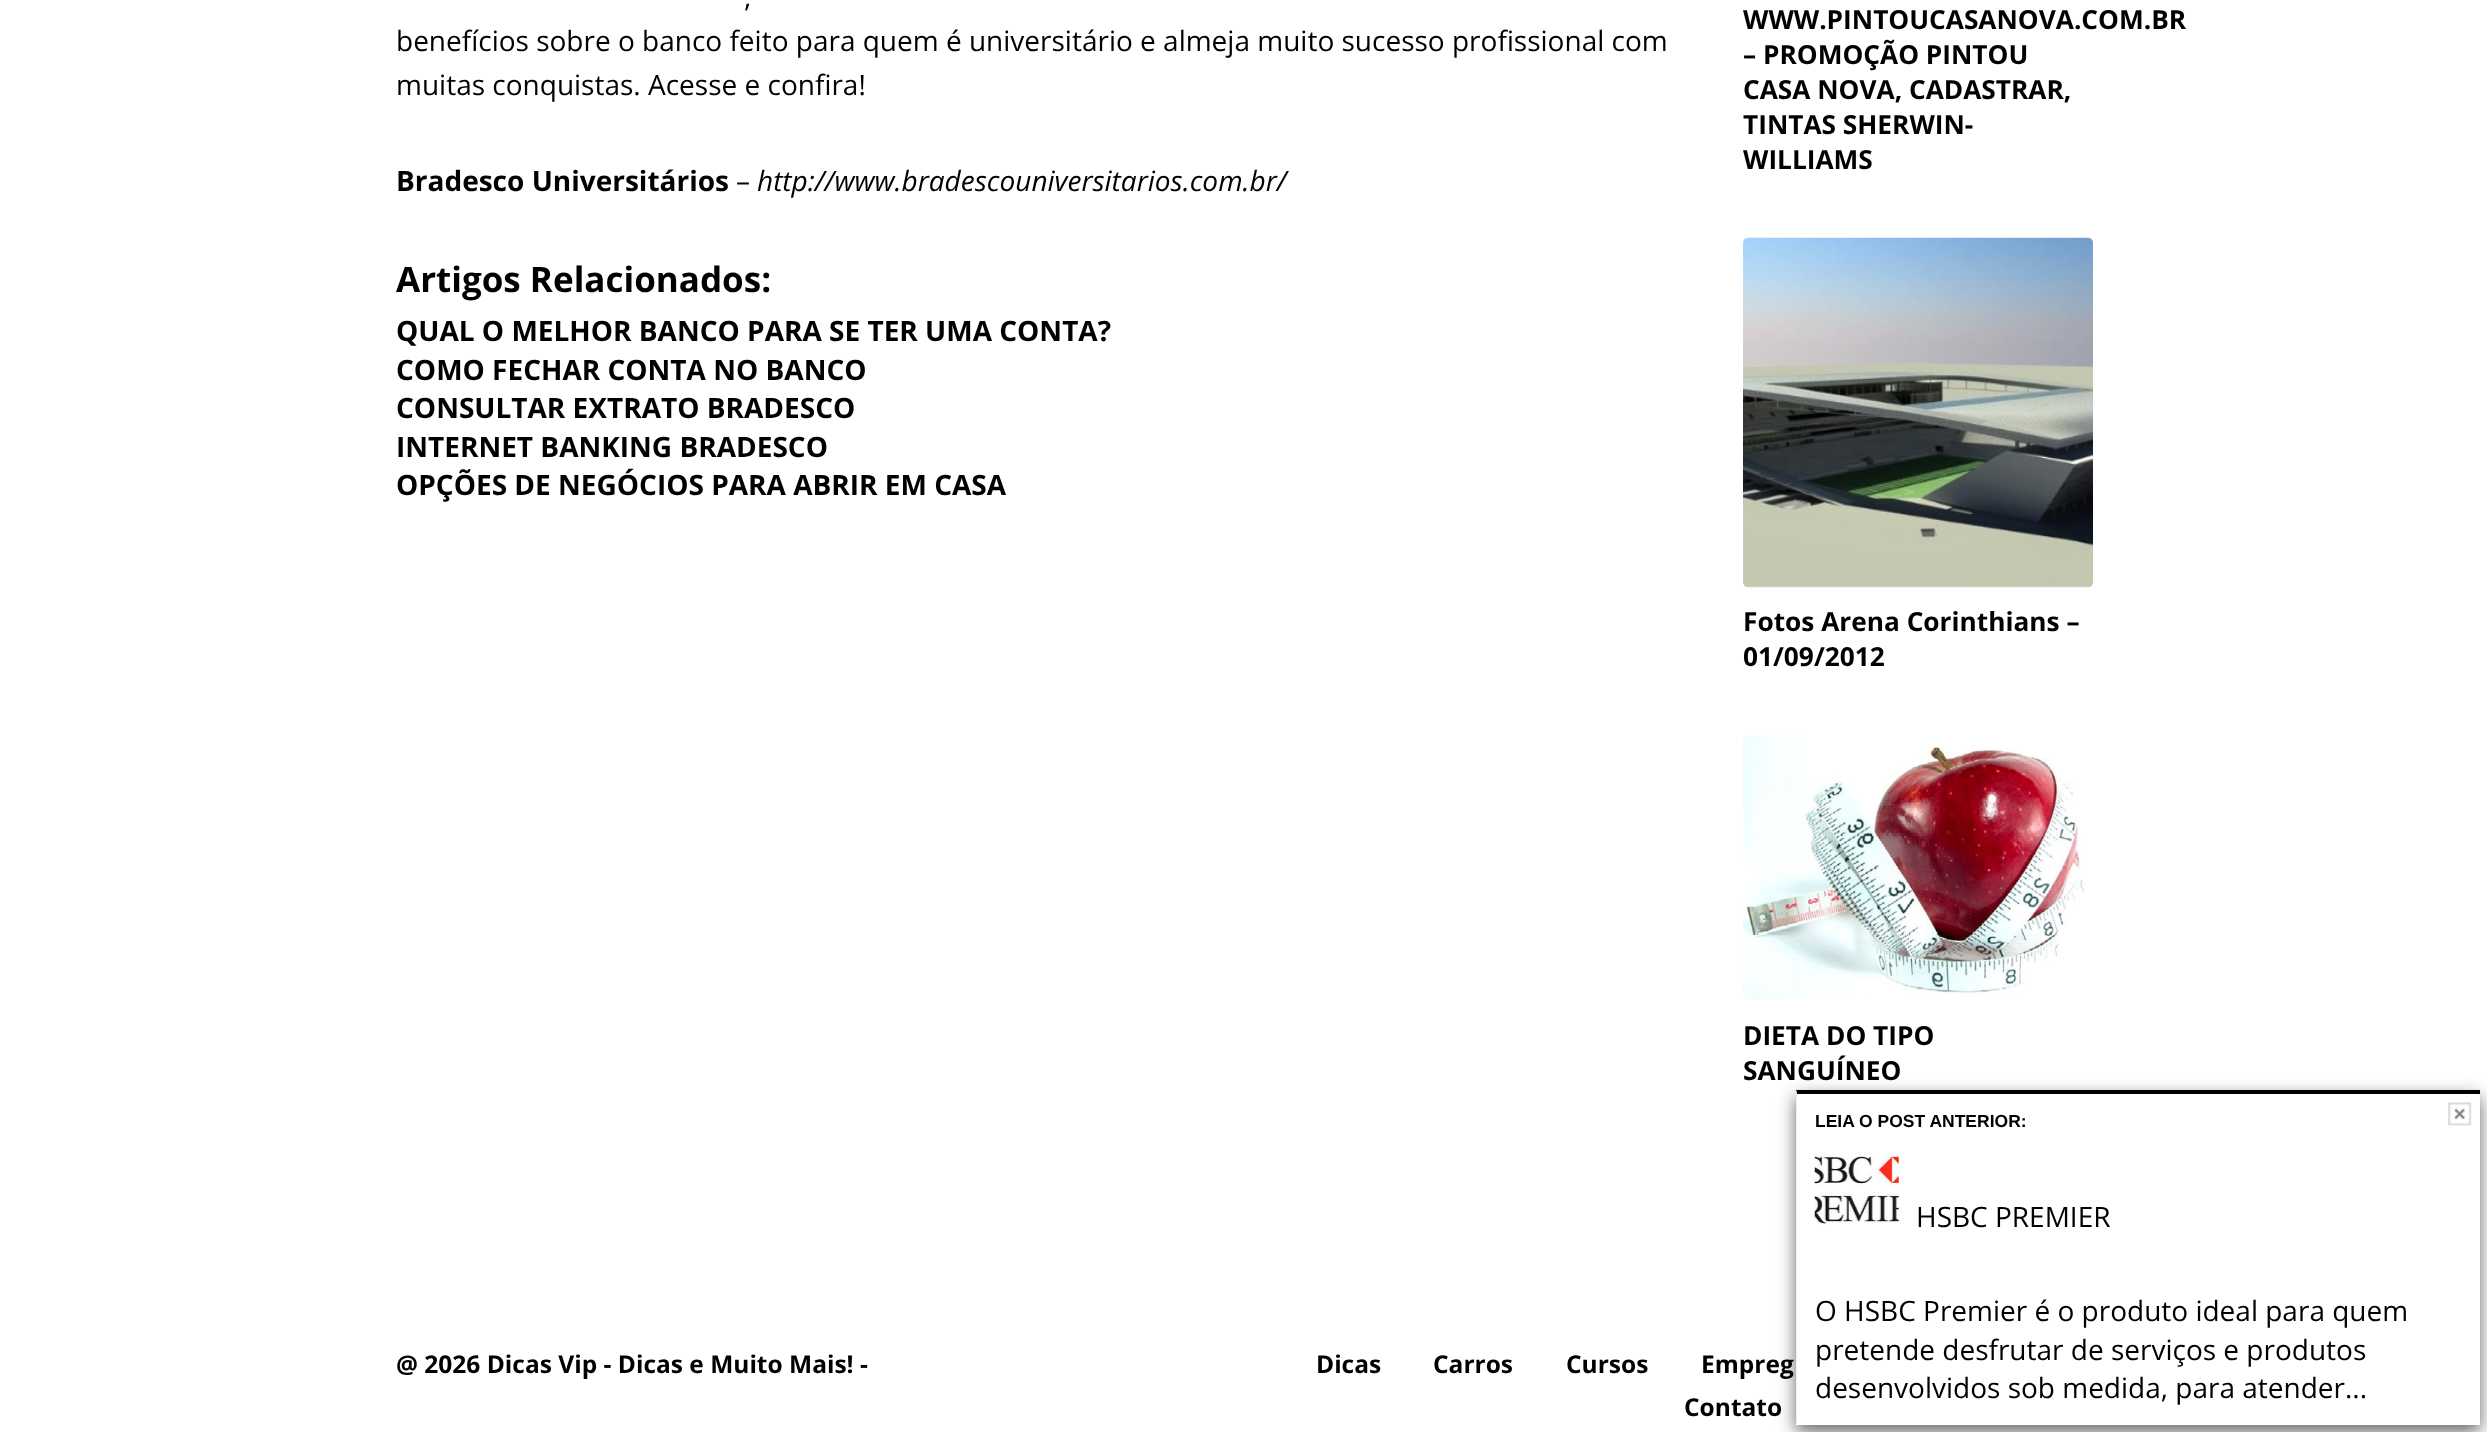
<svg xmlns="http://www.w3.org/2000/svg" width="2487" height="1432">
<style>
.a{font:28px Open Sans;fill:#000}
.b{font:bold 28px Open Sans;fill:#000}
.c{font:italic 28px Open Sans;fill:#000}
.d{font:bold 35px Open Sans;fill:#000}
.e{font:bold 26.25px Open Sans;fill:#000}
.f{font:bold 24.5px Open Sans;fill:#000}
.g{font:bold 17.5px Liberation Sans;fill:#000}
</style>
<rect width="100%" height="100%" fill="#fff"/>
<image href="1.png" x="1743" y="237" width="350" height="351"/>
<image href="2.png" x="1743" y="734" width="342" height="266"/>
<path fill="#666" filter="blur(9px)" d="M1796 1097h684v335H1796z"/>
<path fill="#fff" d="M1796 1090h684v335H1796z"/>
<path fill="#000" d="M1796 1090h684v4h-683z"/>
<path fill="#f0f0f0" d="M1796 1424v-334l1 4v330z"/>
<image href="3.png" x="2448" y="1102" width="24" height="24"/>
<image href="4.png" x="1814" y="1152" width="85" height="73"/>
<text class="a" x="744" y="7">,</text>
<text class="a" x="396" y="51">benefícios sobre o banco feito para quem é universitário e almeja muito sucesso profissional com</text>
<text class="a" x="396" y="95">muitas conquistas. Acesse e confira!</text>
<text class="b" x="396" y="191">Bradesco Universitários</text>
<text class="a" x="736" y="191">–</text>
<text class="c" x="757" y="191">http://www.bradescouniversitarios.com.br/</text>
<text class="d" x="396" y="292">Artigos Relacionados:</text>
<text class="b" x="396" y="341">QUAL O MELHOR BANCO PARA SE TER UMA CONTA?</text>
<text class="b" x="396" y="380">COMO FECHAR CONTA NO BANCO</text>
<text class="b" x="396" y="418">CONSULTAR EXTRATO BRADESCO</text>
<text class="b" x="396" y="457">INTERNET BANKING BRADESCO</text>
<text class="b" x="396" y="495">OPÇÕES DE NEGÓCIOS PARA ABRIR EM CASA</text>
<text class="e" x="1743" y="29">WWW.PINTOUCASANOVA.COM.BR</text>
<text class="e" x="1743" y="64">– PROMOÇÃO PINTOU</text>
<text class="e" x="1743" y="99">CASA NOVA, CADASTRAR,</text>
<text class="e" x="1743" y="134">TINTAS SHERWIN-</text>
<text class="e" x="1743" y="169">WILLIAMS</text>
<text class="e" x="1743" y="631">Fotos Arena Corinthians –</text>
<text class="e" x="1743" y="666">01/09/2012</text>
<text class="e" x="1743" y="1045">DIETA DO TIPO</text>
<text class="e" x="1743" y="1080">SANGUÍNEO</text>
<text class="f" x="396" y="1373">@ 2026 Dicas Vip - Dicas e Muito Mais! -</text>
<text class="f" x="1316" y="1373">Dicas</text>
<text class="f" x="1433" y="1373">Carros</text>
<text class="f" x="1566" y="1373">Cursos</text>
<text class="f" x="1701" y="1373">Empreg</text>
<text class="f" x="1684" y="1416">Contato</text>
<text class="g" x="1815" y="1127">LEIA O POST ANTERIOR:</text>
<text class="a" x="1916" y="1227">HSBC PREMIER</text>
<text class="a" x="1815" y="1321">O HSBC Premier é o produto ideal para quem</text>
<text class="a" x="1815" y="1360">pretende desfrutar de serviços e produtos</text>
<text class="a" x="1815" y="1398">desenvolvidos sob medida, para atender...</text>
</svg>
